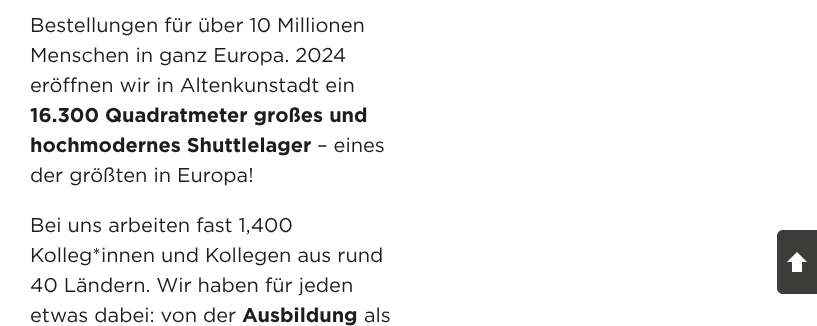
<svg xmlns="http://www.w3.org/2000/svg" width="817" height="326">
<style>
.a{font:20px Gotham;fill:#1d1d1b}
.b{font:bold 20px Gotham;fill:#1d1d1b}
</style>
<rect width="100%" height="100%" fill="#fff"/>
<path fill="#3c3c3b" d="M783 230h34v64h-34c-3.5 0-6-2.5-6-6v-52c0-3.5 2.5-6 6-6z"/>
<path fill="#fff" d="M807 262h-20l10-10z"/>
<path fill="#fff" d="M792 262h10v10H792z"/>
<text class="a" x="30" y="32">Bestellungen für über 10 Millionen</text>
<text class="a" x="30" y="62">Menschen in ganz Europa. 2024</text>
<text class="a" x="30" y="92">eröffnen wir in Altenkunstadt ein</text>
<text class="b" x="30" y="122">16.300 Quadratmeter großes und</text>
<text class="b" x="30" y="152">hochmodernes Shuttlelager</text>
<text class="a" x="317" y="152">– eines</text>
<text class="a" x="30" y="182">der größten in Europa!</text>
<text class="a" x="30" y="232">Bei uns arbeiten fast 1,400</text>
<text class="a" x="30" y="262">Kolleg*innen und Kollegen aus rund</text>
<text class="a" x="30" y="292">40 Ländern. Wir haben für jeden</text>
<text class="a" x="30" y="322">etwas dabei: von der</text>
<text class="b" x="242" y="322">Ausbildung</text>
<text class="a" x="364" y="322">als</text>
</svg>
